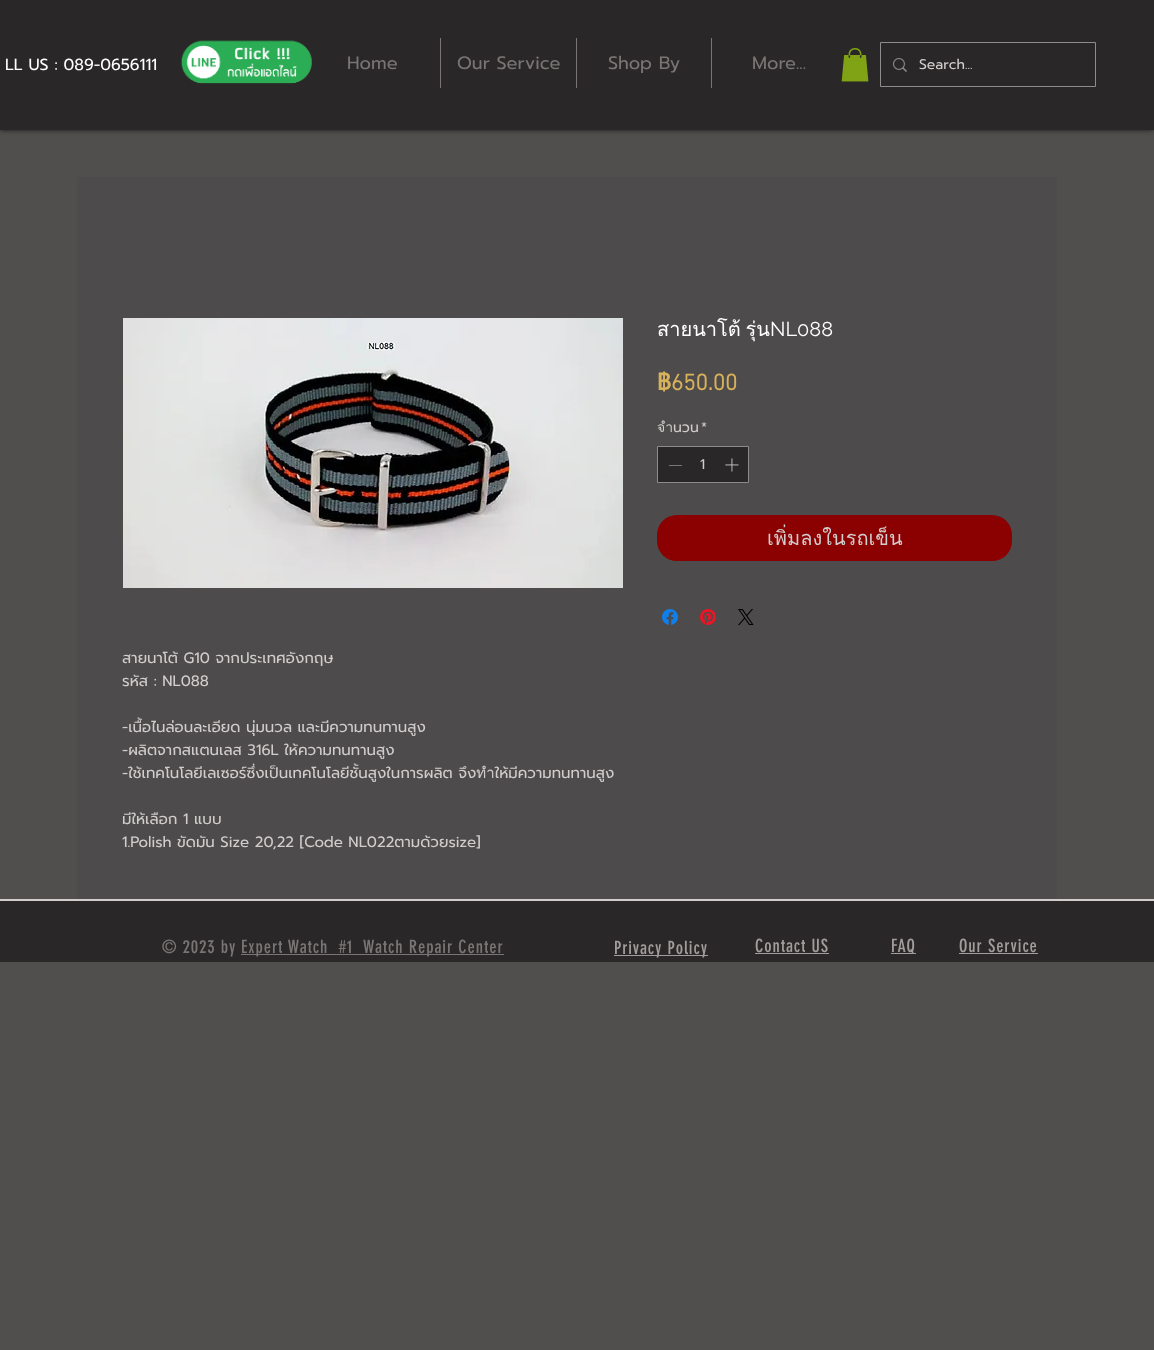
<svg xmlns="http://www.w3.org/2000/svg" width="1154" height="1350">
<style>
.a{font:16px Prompt;fill:#fff}
.b{font:18px Prompt;fill:#797575}
.c{font:14px Prompt;fill:#d1cdcd}
.d{font:20px Loma;fill:#fff}
.e{font:20px Raleway;fill:#fff}
.f{font:bold 23px Loma;fill:#d8b25a}
.g{font:bold 23px 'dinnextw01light';fill:#d8b25a}
.h{font:20px Loma;fill:#d1cdcd}
.i{font:15px Prompt;fill:#d1cdcd}
.j{font:18px 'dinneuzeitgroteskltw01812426';letter-spacing:0.9px;fill:#797575}
.k{font:18px 'dinneuzeitgroteskltw01812426';letter-spacing:0.9px;fill:#a29c9c}
</style>
<defs>
<clipPath id="clip1"><path d="M122 647h490v207H122z"/></clipPath>
</defs>
<rect width="100%" height="100%" fill="#514e4e"/>
<path fill="#000000b3" filter="blur(2.5px)" d="M0 0h1154v130H0z"/>
<path fill="#292727" d="M0 0h1154v130H0z"/>
<image href="1.png" x="181" y="40" width="131" height="44"/>
<path fill="#797575" d="M440 38h1v50H440z"/>
<path fill="#797575" d="M576 38h1v50H576z"/>
<path fill="#797575" d="M711 38h1v50H711z"/>
<image href="2.png" x="841" y="48" width="28" height="34"/>
<path fill="none" stroke="#8e8b8b" d="M880.5 42.5h215v44H880.5z"/>
<image href="3.png" x="893" y="58" width="14" height="14"/>
<path fill="#4d4b4b" d="M77 177h980v722H77z"/>
<path fill="#292727" stroke="#8e8b8b" d="M657.5 446.5h91v36H657.5z"/>
<path fill="#787777" d="M669 465h13v1H669z"/>
<image href="4.png" x="725" y="458" width="14" height="14"/>
<rect fill="#8b0000" x="657" y="515" width="355" height="46" rx="20"/>
<image href="5.png" x="662" y="609" width="16" height="16"/>
<image href="6.png" x="700" y="609" width="16" height="16"/>
<image href="7.png" x="738" y="609" width="16" height="16"/>
<image href="8.png" x="123" y="318" width="500" height="270"/>
<path fill="#292727" d="M0 901h1154v61H0z"/>
<path fill="#d1cdcd" d="M0 899h1154v2H0z"/>
<path fill="#797575" d="M241 954h263v1H241z"/>
<path fill="#a29c9c" d="M614 955h94v1H614z"/>
<path fill="#a29c9c" d="M755 953h74v1H755z"/>
<path fill="#a29c9c" d="M891 953h25v1H891z"/>
<path fill="#a29c9c" d="M959 953h79v1H959z"/>
<text class="a" x="5" y="70">LL US : 089-0656111</text>
<text class="b" x="347" y="69">Home</text>
<text class="b" x="457" y="69">Our Service</text>
<text class="b" x="608" y="69">Shop By</text>
<text class="b" x="752" y="69">More...</text>
<text class="c" x="919" y="69">Search...</text>
<text class="d" x="657" y="336" word-spacing="-2">สายนาโต้ รุ่น</text>
<text class="e" x="770" y="336">NL088</text>
<text class="f" x="657" y="390">฿</text>
<text class="g" x="671" y="390">650.00</text>
<text class="c" x="657" y="432">จำนวน</text>
<text class="c" x="701" y="432">*</text>
<text class="c" x="700" y="469">1</text>
<text class="h" x="767" y="545">เพิ่มลงในรถเข็น</text>
<text class="i" x="122" y="663">สายนาโต้ G10 จากประเทศอังกฤษ</text>
<text class="i" x="122" y="686">รหัส : NL088</text>
<text class="i" x="122" y="732">-เนื้อไนล่อนละเอียด นุ่มนวล และมีความทนทานสูง</text>
<text class="i" x="122" y="755">-ผลิตจากสแตนเลส 316L ให้ความทนทานสูง</text>
<text class="i" x="122" y="778">-ใช้เทคโนโลยีเลเซอร์ซึ่งเป็นเทคโนโลยีชั้นสูงในการผลิต จึงทำให้มีความทนทานสูง</text>
<g clip-path="url(#clip1)">
<text class="i" x="122" y="824">มีให้เลือก 1 แบบ</text>
</g>
<text class="i" x="122" y="847">1.Polish ขัดมัน Size 20,22 [Code NL022ตามด้วยsize]</text>
<text class="j" x="162" y="953">© 2023 by</text>
<text class="j" xml:space="preserve" x="241" y="953">Expert Watch  #1  Watch Repair Center</text>
<text class="k" x="614" y="954">Privacy Policy</text>
<text class="k" x="755" y="952">Contact US</text>
<text class="k" x="891" y="952">FAQ</text>
<text class="k" x="959" y="952">Our Service</text>
</svg>
